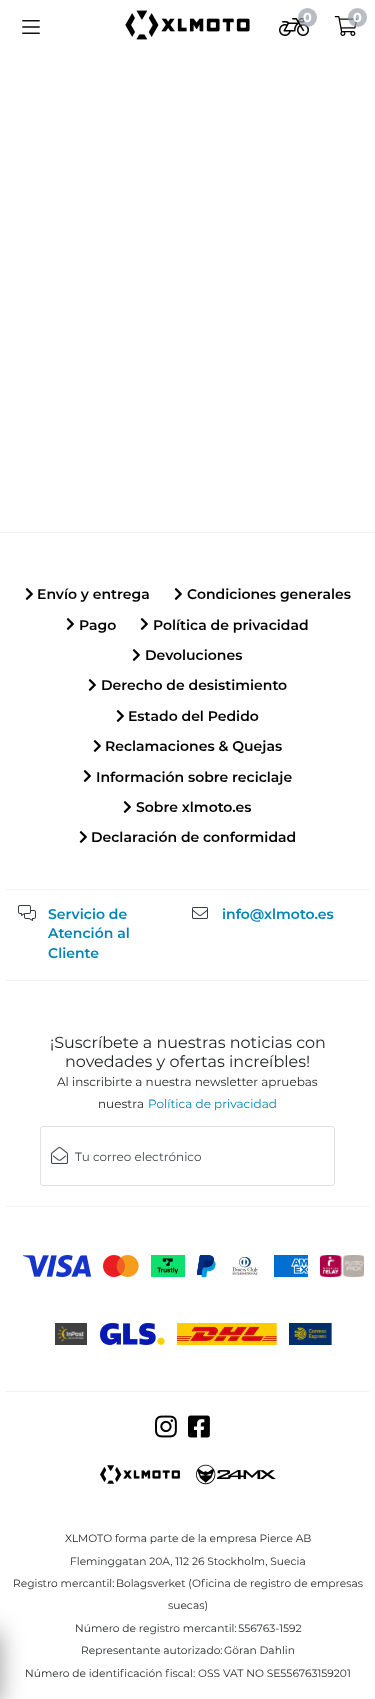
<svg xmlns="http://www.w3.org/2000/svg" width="375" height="1699">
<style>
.a{font:bold 13px Montserrat;fill:#fff}
.b{font:600 14px Montserrat;fill:#000}
.c{font:600 14px Montserrat;fill:#0084b4}
.d{font:16px Montserrat;fill:#1e2123}
.e{font:12px Montserrat;fill:#1e2123}
.f{font:12px Montserrat;fill:#0084b4}
.g{font:12px Montserrat;fill:#42474b}
.h{font:10.7px Montserrat;fill:#1e2123}
</style>
<rect width="100%" height="100%" fill="#fff"/>
<image href="1.png" x="125" y="10" width="125" height="30"/>
<image href="2.png" x="279" y="18" width="30" height="18"/>
<circle fill="#99a1a8b3" cx="307.5" cy="17.5" r="9.5"/>
<image href="3.png" x="334" y="16" width="24" height="20"/>
<circle fill="#99a1a8b3" cx="357.5" cy="17.5" r="9.5"/>
<image href="4.png" x="22" y="20" width="18" height="14"/>
<path fill="#00000066" filter="blur(12.5px)" d="M-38 1632h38v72H-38z"/>
<path fill="#f0f1f2" d="M0 532h375v1H0z"/>
<path fill="#f0f1f2" d="M6 889h363v1H6z"/>
<image href="5.png" x="25" y="588" width="8" height="12"/>
<image href="5.png" x="174" y="588" width="8" height="12"/>
<image href="5.png" x="66" y="618" width="8" height="12"/>
<image href="5.png" x="140" y="618" width="8" height="12"/>
<image href="5.png" x="132" y="649" width="8" height="12"/>
<image href="5.png" x="88" y="679" width="8" height="12"/>
<image href="5.png" x="116" y="710" width="8" height="12"/>
<image href="5.png" x="93" y="740" width="8" height="12"/>
<image href="5.png" x="83" y="770" width="8" height="12"/>
<image href="5.png" x="123" y="801" width="8" height="12"/>
<image href="5.png" x="79" y="831" width="8" height="12"/>
<path fill="#f0f1f2" d="M6 980h363v1H6z"/>
<image href="6.png" x="18" y="905" width="18" height="16"/>
<image href="7.png" x="192" y="907" width="16" height="12"/>
<rect fill="none" stroke="#e0e0e0" x="40.5" y="1126.5" width="294" height="59" rx="2.5"/>
<image href="8.png" x="51" y="1147" width="17" height="17"/>
<path fill="#f0f1f2" d="M6 1206h363v1H6z"/>
<path fill="#f0f1f2" d="M6 1391h363v1H6z"/>
<image href="9.png" x="23" y="1255" width="68" height="22"/>
<image href="10.png" x="103" y="1255" width="36" height="22"/>
<image href="11.png" x="151" y="1255" width="34" height="22"/>
<image href="12.png" x="197" y="1255" width="19" height="22"/>
<image href="13.png" x="232" y="1257" width="26" height="18"/>
<image href="14.png" x="274" y="1255" width="34" height="22"/>
<image href="15.png" x="320" y="1255" width="44" height="22"/>
<image href="16.png" x="55" y="1323" width="32" height="22"/>
<image href="17.png" x="100" y="1323" width="65" height="22"/>
<image href="18.png" x="177" y="1323" width="100" height="22"/>
<image href="19.png" x="289" y="1323" width="43" height="22"/>
<image href="20.png" x="155" y="1415" width="22" height="23"/>
<image href="21.png" x="188" y="1415" width="22" height="23"/>
<image href="22.png" x="100" y="1465" width="80" height="19"/>
<image href="23.png" x="196" y="1464" width="80" height="21"/>
<text class="a" x="303" y="22">0</text>
<text class="a" x="353" y="22">0</text>
<text class="b" x="37" y="599">Envío y entrega</text>
<text class="b" x="187" y="599">Condiciones generales</text>
<text class="b" x="79" y="630">Pago</text>
<text class="b" x="153" y="630">Política de privacidad</text>
<text class="b" x="145" y="660">Devoluciones</text>
<text class="b" x="101" y="690">Derecho de desistimiento</text>
<text class="b" x="128" y="721">Estado del Pedido</text>
<text class="b" x="105" y="751">Reclamaciones &amp; Quejas</text>
<text class="b" x="96" y="782">Información sobre reciclaje</text>
<text class="b" x="136" y="812">Sobre xlmoto.es</text>
<text class="b" x="91" y="842">Declaración de conformidad</text>
<text class="c" x="48" y="919">Servicio de</text>
<text class="c" x="48" y="938">Atención al</text>
<text class="c" x="48" y="958">Cliente</text>
<text class="c" x="222" y="919">info@xlmoto.es</text>
<text class="d" x="50" y="1048">¡Suscríbete a nuestras noticias con</text>
<text class="d" x="65" y="1067">novedades y ofertas increíbles!</text>
<text class="e" x="57" y="1086">Al inscribirte a nuestra newsletter apruebas</text>
<text class="e" x="98" y="1108">nuestra</text>
<text class="f" x="148" y="1108">Política de privacidad</text>
<text class="g" x="75" y="1161">Tu correo electrónico</text>
<text class="h" x="65" y="1542">XLMOTO forma parte de la empresa Pierce AB</text>
<text class="h" x="70" y="1565">Fleminggatan 20A, 112 26 Stockholm, Suecia</text>
<text class="h" x="13" y="1587">Registro mercantil: Bolagsverket (Oficina de registro de empresas</text>
<text class="h" x="168" y="1609">suecas)</text>
<text class="h" x="75" y="1632">Número de registro mercantil: 556763-1592</text>
<text class="h" x="81" y="1654">Representante autorizado: Göran Dahlin</text>
<text class="h" x="25" y="1677">Número de identificación fiscal: OSS VAT NO SE556763159201</text>
</svg>
